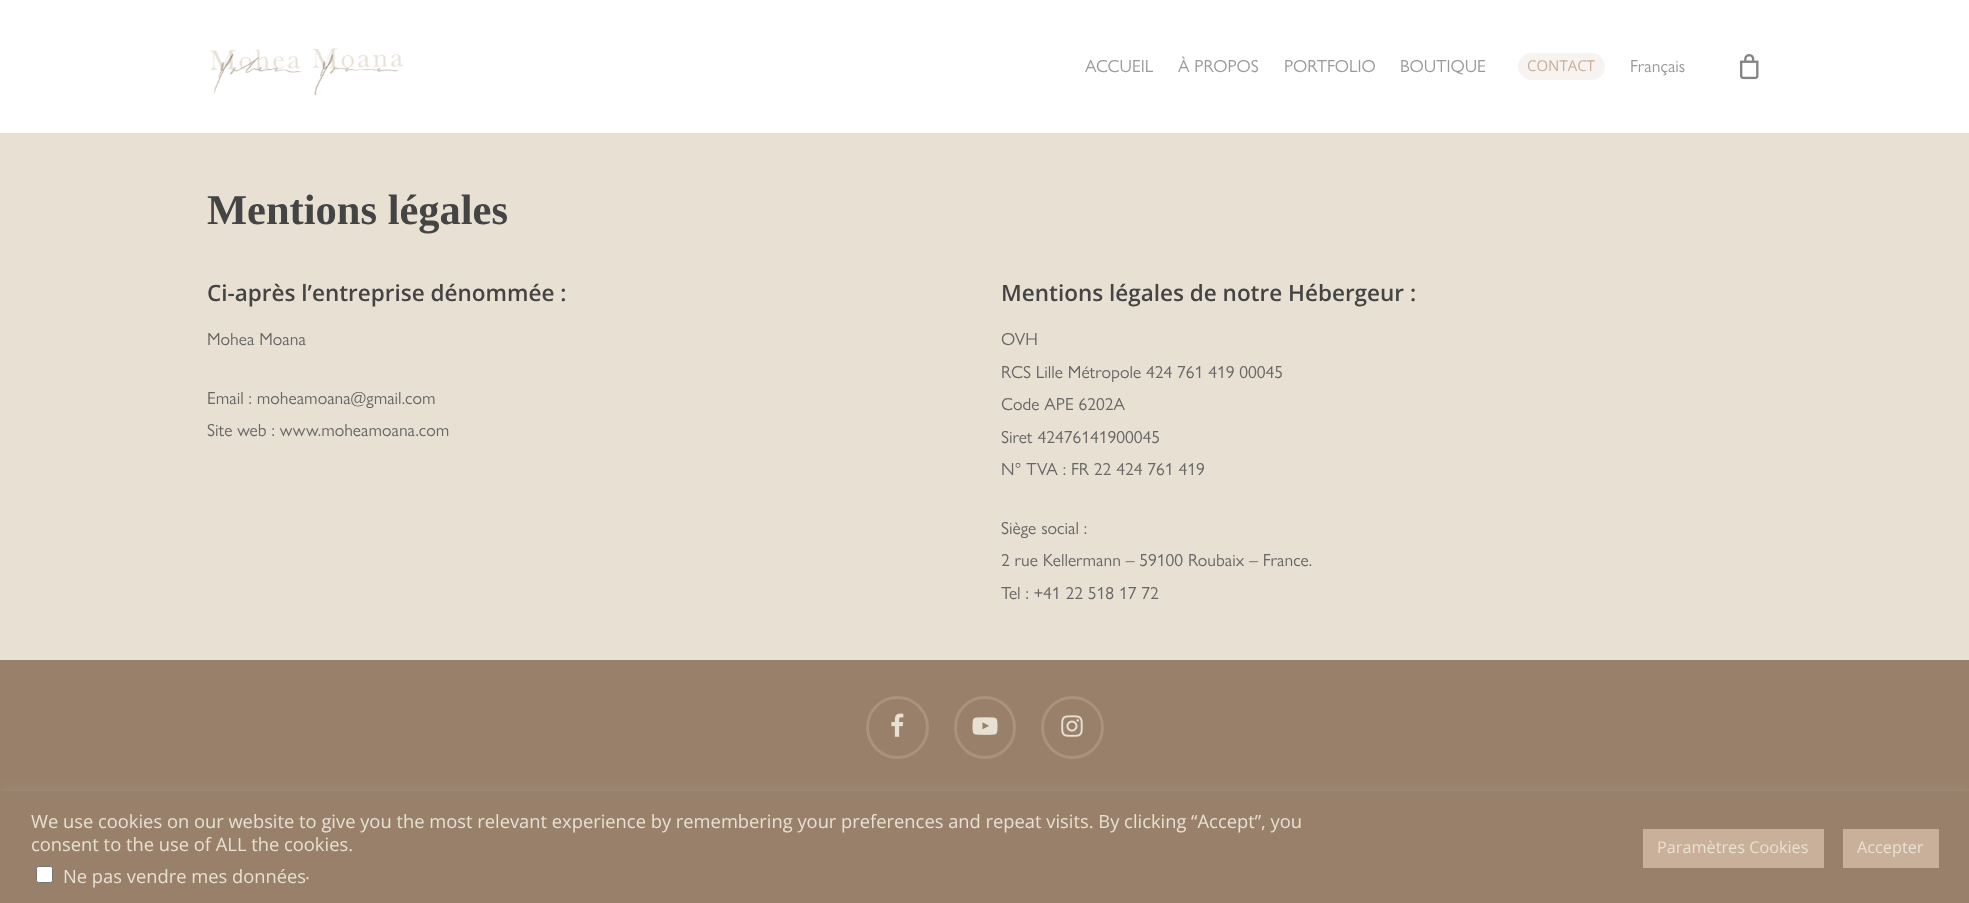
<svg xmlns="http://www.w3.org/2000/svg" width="1969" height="903">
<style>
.a{font:17.5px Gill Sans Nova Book;fill:#999}
.b{font:15px Open Sans;fill:#c9b09a}
.c{font:bold 42.5px Liberation Serif;fill:#444}
.d{font:600 22.5px Open Sans;fill:#444}
.e{font:17.5px Gill Sans Nova Book;fill:#676767}
.f{font:18.33px Open Sans;fill:#e8e0d3}
.g{font:16.25px Open Sans;fill:#e8e0d3}
</style>
<rect width="100%" height="100%" fill="#fff"/>
<image href="1.png" x="210" y="48" width="194" height="48"/>
<image href="2.png" x="1740" y="54" width="19" height="26"/>
<path fill="#e8e0d3" d="M0 133h1969v527H0z"/>
<path fill="#99806a" d="M0 660h1969v131H0z"/>
<image href="3.png" x="891" y="713" width="13" height="24"/>
<circle fill="none" stroke="#a9937f" stroke-width="3" cx="897.5" cy="727.5" r="30"/>
<image href="4.png" x="972" y="717" width="26" height="18"/>
<rect fill="none" stroke="#a9937f" stroke-width="3" x="955.5" y="697.5" width="59" height="60" rx="29.5"/>
<image href="5.png" x="1061" y="715" width="22" height="22"/>
<circle fill="none" stroke="#a9937f" stroke-width="3" cx="1072.5" cy="727.5" r="30"/>
<path fill="#acabab4d" filter="blur(6px)" d="M0 790h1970v113H0z"/>
<path fill="#99806a" d="M0 791h1969v112H0z"/>
<rect fill="#fff" stroke="#767676" x="36.5" y="866.5" width="16" height="16" rx="2"/>
<path fill="#c9b09a" d="M1643 829h181v39H1643z"/>
<path fill="#c9b09a" d="M1843 829h96v39H1843z"/>
<text class="a" x="1085" y="72">ACCUEIL</text>
<text class="a" x="1178" y="72">À PROPOS</text>
<text class="a" x="1284" y="72">PORTFOLIO</text>
<text class="a" x="1400" y="72">BOUTIQUE</text>
<text class="b" x="1527" y="71">CONTACT</text>
<rect fill="#c9b09a26" x="1518" y="53" width="87" height="27" rx="13.5"/>
<text class="a" x="1630" y="72">Français</text>
<text class="c" x="207" y="224">Mentions légales</text>
<text class="d" x="207" y="301">Ci-après l’entreprise dénommée :</text>
<text class="e" x="207" y="345">Mohea Moana</text>
<text class="e" x="207" y="404">Email : moheamoana@gmail.com</text>
<text class="e" x="207" y="436">Site web : www.moheamoana.com</text>
<text class="d" x="1001" y="301">Mentions légales de notre Hébergeur :</text>
<text class="e" x="1001" y="345">OVH</text>
<text class="e" x="1001" y="378">RCS Lille Métropole 424 761 419 00045</text>
<text class="e" x="1001" y="410">Code APE 6202A</text>
<text class="e" x="1001" y="443">Siret 42476141900045</text>
<text class="e" x="1001" y="475">N° TVA : FR 22 424 761 419</text>
<text class="e" x="1001" y="534">Siège social :</text>
<text class="e" x="1001" y="566">2 rue Kellermann – 59100 Roubaix – France.</text>
<text class="e" x="1001" y="599">Tel : +41 22 518 17 72</text>
<text class="f" x="31" y="828">We use cookies on our website to give you the most relevant experience by remembering your preferences and repeat visits. By clicking “Accept”, you</text>
<text class="f" x="31" y="851">consent to the use of ALL the cookies.</text>
<text class="f" x="63" y="883">Ne pas vendre mes données</text>
<text class="f" x="305" y="879">.</text>
<text class="g" x="1657" y="853">Paramètres Cookies</text>
<text class="g" x="1857" y="853">Accepter</text>
</svg>
